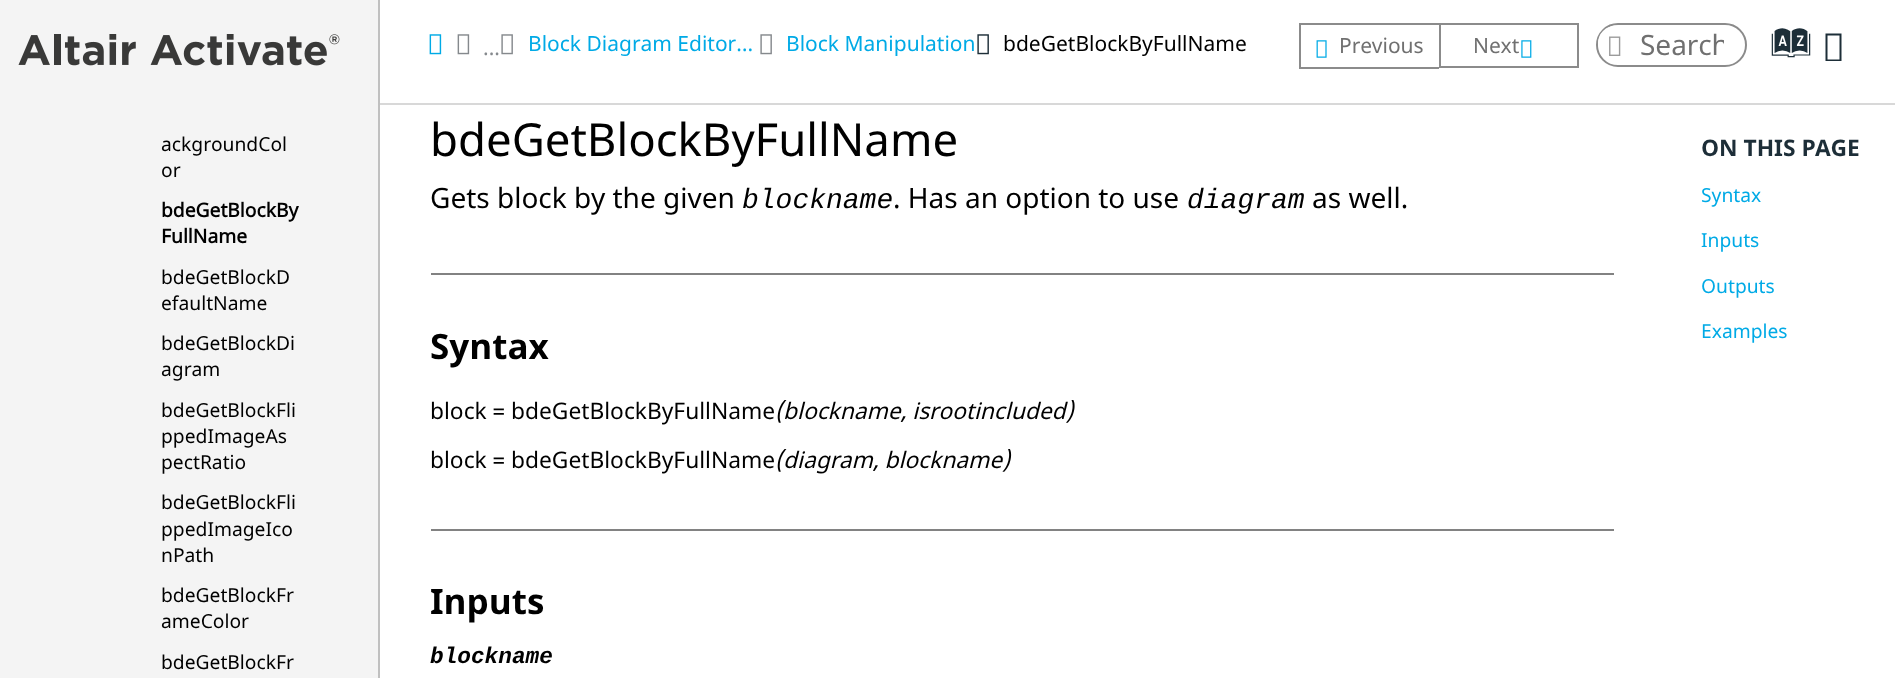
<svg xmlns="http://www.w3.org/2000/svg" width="1895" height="678">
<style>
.a{font:19.25px Noto Sans;fill:#000}
.b{font:bold 19.25px 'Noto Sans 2';fill:#000}
.c{font:21px Noto Sans;fill:#85898d}
.d{font:21px Noto Sans;fill:#00aae6}
.e{font:21px Noto Sans;fill:#000}
.f{font:21px Noto Sans;fill:#707070}
.g{font:28px Noto Sans;fill:#707070}
.h{font:41px Oxygen;fill:#1d2e38}
.i{font:45.5px Noto Sans;fill:#000}
.j{font:28px Noto Sans;fill:#000}
.k{font:italic 28px Liberation Mono;fill:#000}
.l{font:bold 35px Noto Sans;fill:#000}
.m{font:22.75px Noto Sans;fill:#000}
.n{font:italic 22.75px Noto Sans;fill:#000}
.o{font:italic bold 22.75px Liberation Mono;fill:#000}
.p{font:bold 22.75px Noto Sans;fill:#1d2e38}
.q{font:19.25px Noto Sans;fill:#00aae6}
</style>
<defs>
<clipPath id="clip1"><path d="M1640 25h84v38H1640z"/></clipPath>
</defs>
<rect width="100%" height="100%" fill="#fff"/>
<path fill="#f4f4f4" d="M0 0h378v678H0z"/>
<path fill="#c0c0c0" d="M378 0h2v678H378z"/>
<image href="1.png" x="18" y="34" width="322" height="32"/>
<path fill="#d8d8d8" d="M380 103h1515v2H380z"/>
<image href="2.png" x="429" y="34" width="13" height="21"/>
<image href="3.png" x="457" y="34" width="13" height="21"/>
<image href="4.png" x="501" y="34" width="12" height="21"/>
<image href="4.png" x="760" y="34" width="12" height="21"/>
<image href="5.png" x="977" y="34" width="12" height="21"/>
<path fill="#8b8b8b" d="M1299 23h140v2H1299z"/>
<path fill="#8b8b8b" d="M1299 67h140v2H1299z"/>
<path fill="#8b8b8b" d="M1299 23h2v45H1299z"/>
<image href="6.png" x="1316" y="40" width="11" height="18"/>
<path fill="none" stroke="#8b8b8b" stroke-width="2" d="M1440 24h138v43H1440z"/>
<image href="7.png" x="1521" y="40" width="11" height="18"/>
<rect fill="none" stroke="#8b8b8b" stroke-width="2" x="1597" y="24" width="149" height="42" rx="21"/>
<rect fill="#fff" x="1598" y="26" width="35" height="34" rx="17"/>
<image href="8.png" x="1609" y="36" width="12" height="20"/>
<path fill="#1d2e38" d="M1825.5 61v-27.5h16v27.5zm2-1.5h12v-24h-12z"/>
<path fill="#828282" d="M431 273h1183v2H431z"/>
<path fill="#828282" d="M431 529h1183v2H431z"/>
<text class="a" x="161" y="151">ackgroundCol</text>
<text class="a" x="161" y="177">or</text>
<text class="b" x="161" y="217">bdeGetBlockBy</text>
<text class="b" x="161" y="243">FullName</text>
<text class="a" x="161" y="284">bdeGetBlockD</text>
<text class="a" x="161" y="310">efaultName</text>
<text class="a" x="161" y="350">bdeGetBlockDi</text>
<text class="a" x="161" y="376">agram</text>
<text class="a" x="161" y="417">bdeGetBlockFli</text>
<text class="a" x="161" y="443">ppedImageAs</text>
<text class="a" x="161" y="469">pectRatio</text>
<text class="a" x="161" y="509">bdeGetBlockFli</text>
<text class="a" x="161" y="536">ppedImageIco</text>
<text class="a" x="161" y="562">nPath</text>
<text class="a" x="161" y="602">bdeGetBlockFr</text>
<text class="a" x="161" y="628">ameColor</text>
<text class="a" x="161" y="669">bdeGetBlockFr</text>
<text class="c" x="483" y="55">...</text>
<text class="d" x="528" y="51">Block Diagram Editor…</text>
<text class="d" x="786" y="51">Block Manipulation</text>
<text class="e" x="1003" y="51">bdeGetBlockByFullName</text>
<text class="f" x="1339" y="53">Previous</text>
<text class="f" x="1473" y="53">Next</text>
<g clip-path="url(#clip1)">
<text class="g" x="1640" y="55">Search</text>
</g>
<text class="h" x="1776" y="62">a</text>
<text class="i" x="430" y="156">bdeGetBlockByFullName</text>
<text class="j" x="430" y="208">Gets block by the given</text>
<text class="k" x="742" y="208">blockname</text>
<text class="j" x="893" y="208">. Has an option to use</text>
<text class="k" x="1187" y="208">diagram</text>
<text class="j" x="1312" y="208">as well.</text>
<text class="l" x="430" y="359">Syntax</text>
<text class="m" x="430" y="419">block = bdeGetBlockByFullName</text>
<text class="n" x="775" y="419">(blockname, isrootincluded)</text>
<text class="m" x="430" y="468">block = bdeGetBlockByFullName</text>
<text class="n" x="775" y="468">(diagram, blockname)</text>
<text class="l" x="430" y="614">Inputs</text>
<text class="o" x="430" y="663">blockname</text>
<text class="p" x="1701" y="156">ON THIS PAGE</text>
<text class="q" x="1701" y="202">Syntax</text>
<text class="q" x="1701" y="247">Inputs</text>
<text class="q" x="1701" y="293">Outputs</text>
<text class="q" x="1701" y="338">Examples</text>
</svg>
